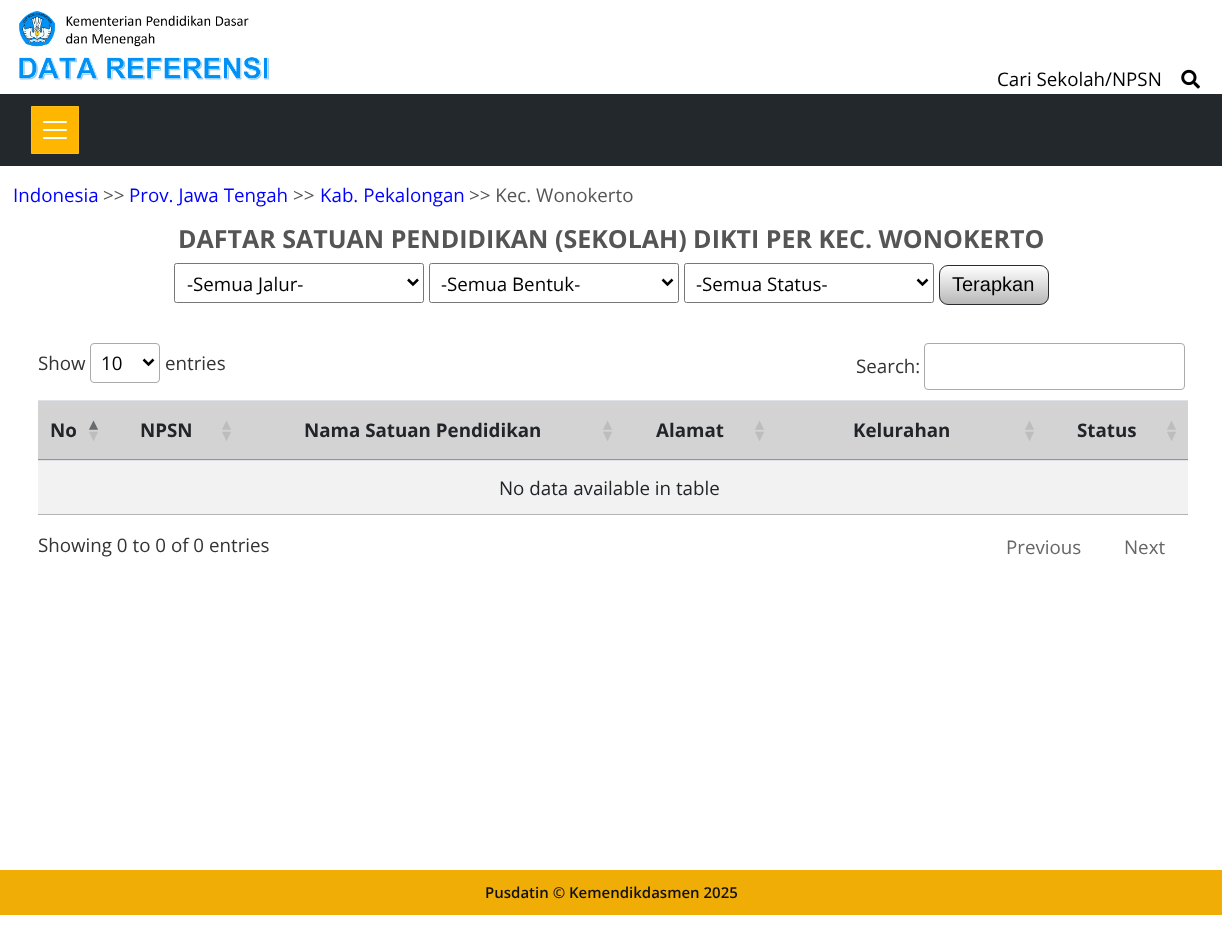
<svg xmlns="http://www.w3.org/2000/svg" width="1222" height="944">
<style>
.a{font:18.75px Open Sans;fill:#000}
.b{font:18.75px Open Sans;fill:#00f}
.c{font:18.75px Open Sans;fill:#555}
.d{font:bold 25px Open Sans;fill:#555}
.e{font:20px Liberation Sans;fill:#000}
.f{font:18.75px Open Sans;fill:#333}
.g{font:bold 18.75px Open Sans;fill:#212529}
.h{font:bold 17px DejaVu Sans;fill:#686b6d}
.i{font:bold 17px DejaVu Sans;fill:#bdbdbe}
.j{font:18.75px Open Sans;fill:#212529}
.k{font:18.75px Open Sans;fill:#666}
.l{font:600 15px Open Sans;fill:#111}
</style>
<defs>
<clipPath id="clip1"><rect x="939" y="265" width="110" height="40" rx="9"/></clipPath>
<linearGradient id="g1" gradientUnits="userSpaceOnUse" x1="994" y1="266" x2="994" y2="304"><stop offset="0" stop-color="#fff"/><stop offset="1" stop-color="#b8b8b8"/></linearGradient>
</defs>
<rect width="100%" height="100%" fill="#fff"/>
<path fill="#23282d" d="M0 94h1222v72H0z"/>
<image href="1.png" x="19" y="10" width="250" height="70"/>
<image href="2.png" x="1181" y="69" width="19" height="20"/>
<path fill="#ffb600" stroke="#ffbd1a" d="M31.5 106.5h47v47H31.5z"/>
<image href="3.png" x="43" y="121" width="24" height="18"/>
<rect fill="none" stroke="#767676" x="174.5" y="263.5" width="249" height="39" rx="2"/>
<path fill="none" stroke="#000" stroke-width="2.5" d="M408 279.5l5 5l5-5"/>
<rect fill="none" stroke="#767676" x="429.5" y="263.5" width="249" height="39" rx="2"/>
<path fill="none" stroke="#000" stroke-width="2.5" d="M662.5 279.5l5 5l5-5"/>
<rect fill="none" stroke="#767676" x="684.5" y="263.5" width="249" height="39" rx="2"/>
<path fill="none" stroke="#000" stroke-width="2.5" d="M917.5 279.5l5 5l5-5"/>
<g clip-path="url(#clip1)">
<path fill="url(#g1)" d="M939 266h110v38H939z"/>
</g>
<rect fill="none" stroke="#2a2d30" x="939.5" y="265.5" width="109" height="39" rx="8.5"/>
<rect fill="none" stroke="#aaa" x="90.5" y="343.5" width="69" height="39" rx="3.5"/>
<path fill="none" stroke="#000" stroke-width="2.5" d="M143.5 359.5l5 5l5-5"/>
<rect fill="none" stroke="#aaa" x="924.5" y="343.5" width="260" height="46" rx="3.5"/>
<path fill="#b3b3b3" d="M38 514h1150v1H38z"/>
<path fill="#d3d3d3" d="M38 401h1150v58H38z"/>
<path fill="#dee2e6" d="M38 400h1150v1H38z"/>
<path fill="#949494" d="M38 459h1150v1H38z"/>
<path fill="#f2f2f2" d="M38 461h1150v53H38z"/>
<path fill="#dee2e6" d="M38 460h1150v1H38z"/>
<path fill="#f0ad06" d="M0 870h1222v45H0z"/>
<text class="a" x="997" y="86">Cari Sekolah/NPSN</text>
<text class="b" x="13" y="202">Indonesia</text>
<text class="c" x="103" y="202">&gt;&gt;</text>
<text class="b" x="129" y="202">Prov. Jawa Tengah</text>
<text class="c" x="293" y="202">&gt;&gt;</text>
<text class="b" x="320" y="202">Kab. Pekalongan</text>
<text class="c" x="469" y="202">&gt;&gt; Kec. Wonokerto</text>
<text class="d" x="178" y="248">DAFTAR SATUAN PENDIDIKAN (SEKOLAH) DIKTI PER KEC. WONOKERTO</text>
<text class="a" x="187" y="291">-Semua Jalur-</text>
<text class="a" x="441" y="291">-Semua Bentuk-</text>
<text class="a" x="696" y="291">-Semua Status-</text>
<text class="e" x="952" y="291">Terapkan</text>
<text class="f" x="38" y="370">Show</text>
<text class="a" x="101" y="370">10</text>
<text class="f" x="165" y="370">entries</text>
<text class="f" x="856" y="373">Search:</text>
<text class="g" x="50" y="437">No</text>
<text class="h" x="89" y="430">▴</text>
<text class="i" x="89" y="441">▾</text>
<text class="g" x="140" y="437">NPSN</text>
<text class="i" x="222" y="430">▴</text>
<text class="i" x="222" y="441">▾</text>
<text class="g" x="304" y="437">Nama Satuan Pendidikan</text>
<text class="i" x="603" y="430">▴</text>
<text class="i" x="603" y="441">▾</text>
<text class="g" x="656" y="437">Alamat</text>
<text class="i" x="755" y="430">▴</text>
<text class="i" x="755" y="441">▾</text>
<text class="g" x="853" y="437">Kelurahan</text>
<text class="i" x="1025" y="430">▴</text>
<text class="i" x="1025" y="441">▾</text>
<text class="g" x="1077" y="437">Status</text>
<text class="i" x="1167" y="430">▴</text>
<text class="i" x="1167" y="441">▾</text>
<text class="j" x="499" y="495">No data available in table</text>
<text class="f" x="38" y="552">Showing 0 to 0 of 0 entries</text>
<text class="k" x="1006" y="554">Previous</text>
<text class="k" x="1124" y="554">Next</text>
<text class="l" x="485" y="898">Pusdatin © Kemendikdasmen 2025</text>
</svg>
